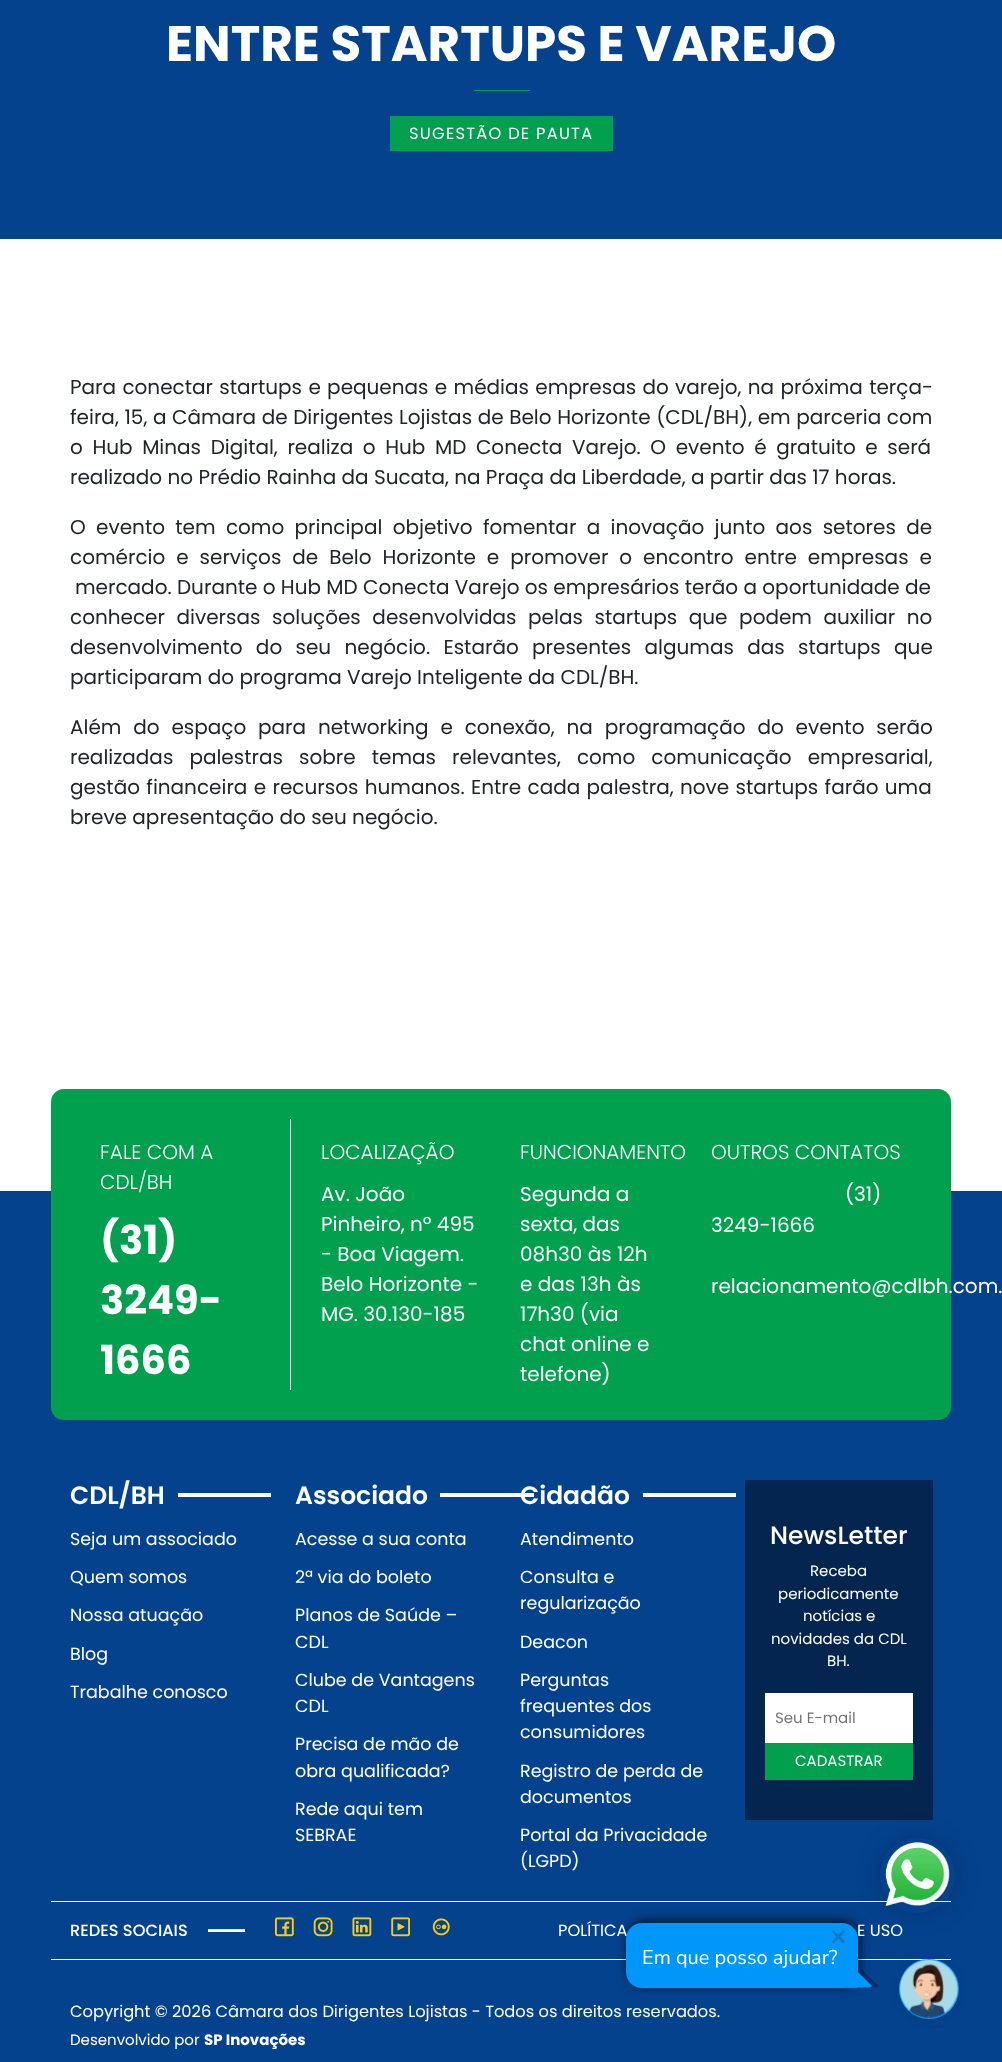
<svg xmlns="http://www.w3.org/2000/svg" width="1002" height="2062">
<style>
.a{font:bold 50px Poppins;fill:#fff}
.b{font:16.25px Poppins;letter-spacing:1.25px;fill:#fff}
.c{font:20px Poppins;fill:#212529}
.d{font:300 20px Poppins;fill:#fff}
.e{font:bold 40px Poppins;fill:#fff}
.f{font:20px Poppins;fill:#fff}
.g{font:600 25px Poppins;fill:#fff}
.h{font:17.5px Poppins;fill:#fff}
.i{font:500 25px Poppins;fill:#fff}
.j{font:15px Poppins;fill:#fff}
.k{font:15px Poppins;fill:#757575}
.l{font:500 16.25px Poppins;fill:#fff}
.m{font:16.25px Poppins;fill:#fff}
.n{font:bold 15px Poppins;fill:#fff}
.o{font:20px Nunito Sans;fill:#fff}
</style>
<defs>
<clipPath id="clip1"><path d="M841 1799h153v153h-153zm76.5 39c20.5 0 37.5 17 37.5 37.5c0 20.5-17 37.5-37.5 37.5c-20.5 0-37.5-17-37.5-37.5c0-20.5 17-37.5 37.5-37.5z" clip-rule="evenodd"/></clipPath>
</defs>
<rect width="100%" height="100%" fill="#fff"/>
<path fill="#05428e" d="M0 0h1002v239H0z"/>
<path fill="#00a04e" d="M474 90h56v1H474z"/>
<path fill="#00a04e" d="M390 116h223v35H390z"/>
<path fill="#05428e" d="M0 1191h1002v871H0z"/>
<rect fill="#00a04e" x="51" y="1089" width="900" height="331" rx="13"/>
<path fill="#fff" d="M290 1119h1v271H290z"/>
<path fill="#fff" d="M178 1493h93v4H178z"/>
<path fill="#fff" d="M440 1493h94v4H440z"/>
<path fill="#fff" d="M643 1493h93v4H643z"/>
<path fill="#032550" d="M745 1480h188v340H745z"/>
<path fill="#fff" d="M765 1693h148v50H765z"/>
<path fill="#00a04e" d="M765 1743h148v37H765z"/>
<path fill="#fff" d="M51 1901h900v1H51z"/>
<path fill="#fff" d="M51 1959h900v1H51z"/>
<path fill="#fff" d="M208 1930h37v2H208z"/>
<path fill="#e6e6e6" d="M208 1929h37v1H208z"/>
<image href="1.png" x="275" y="1917" width="19" height="20"/>
<image href="2.png" x="313" y="1917" width="20" height="20"/>
<image href="3.png" x="352" y="1917" width="20" height="20"/>
<image href="4.png" x="391" y="1917" width="19" height="20"/>
<image href="5.png" x="432" y="1918" width="18" height="18"/>
<rect fill="#000000bf" filter="blur(5.5px)" x="628" y="1921" width="231" height="65" rx="16"/>
<rect fill="#0000001a" filter="blur(4px)" x="899" y="1960" width="60" height="60" rx="30"/>
<circle fill="#0096fa" cx="929" cy="1989" r="30"/>
<image href="7.png" x="899" y="1959" width="60" height="60"/>
<text class="a" x="166" y="61">ENTRE STARTUPS E VAREJO</text>
<text class="b" x="409" y="139">SUGESTÃO DE PAUTA</text>
<text class="c" x="70" y="394" word-spacing="1">Para conectar startups e pequenas e médias empresas do varejo, na próxima terça-</text>
<text class="c" x="70" y="424" word-spacing="0.25">feira, 15, a Câmara de Dirigentes Lojistas de Belo Horizonte (CDL/BH), em parceria com</text>
<text class="c" x="70" y="454" word-spacing="4.25">o Hub Minas Digital, realiza o Hub MD Conecta Varejo. O evento é gratuito e será</text>
<text class="c" x="70" y="484">realizado no Prédio Rainha da Sucata, na Praça da Liberdade, a partir das 17 horas.</text>
<text class="c" x="70" y="534" word-spacing="5">O evento tem como principal objetivo fomentar a inovação junto aos setores de</text>
<text class="c" x="70" y="564" word-spacing="5.6">comércio e serviços de Belo Horizonte e promover o encontro entre empresas e</text>
<text class="c" x="75" y="594">mercado. Durante o Hub MD Conecta Varejo os empresários terão a oportunidade de</text>
<text class="c" x="70" y="624" word-spacing="6.25">conhecer diversas soluções desenvolvidas pelas startups que podem auxiliar no</text>
<text class="c" x="70" y="654" word-spacing="8">desenvolvimento do seu negócio. Estarão presentes algumas das startups que</text>
<text class="c" x="70" y="684">participaram do programa Varejo Inteligente da CDL/BH.</text>
<text class="c" x="70" y="734" word-spacing="6.5">Além do espaço para networking e conexão, na programação do evento serão</text>
<text class="c" x="70" y="764" word-spacing="10.75">realizadas palestras sobre temas relevantes, como comunicação empresarial,</text>
<text class="c" x="70" y="794" word-spacing="1">gestão financeira e recursos humanos. Entre cada palestra, nove startups farão uma</text>
<text class="c" x="70" y="824">breve apresentação do seu negócio.</text>
<text class="d" x="100" y="1159">FALE COM A</text>
<text class="d" x="100" y="1189">CDL/BH</text>
<text class="e" x="100" y="1254">(31)</text>
<text class="e" x="100" y="1314">3249-</text>
<text class="e" x="100" y="1374">1666</text>
<text class="d" x="321" y="1159">LOCALIZAÇÃO</text>
<text class="f" x="321" y="1201">Av. João</text>
<text class="f" x="321" y="1231">Pinheiro, nº 495</text>
<text class="f" x="321" y="1261">- Boa Viagem.</text>
<text class="f" x="321" y="1291">Belo Horizonte -</text>
<text class="f" x="321" y="1321">MG. 30.130-185</text>
<text class="d" x="520" y="1159">FUNCIONAMENTO</text>
<text class="f" x="520" y="1201">Segunda a</text>
<text class="f" x="520" y="1231">sexta, das</text>
<text class="f" x="520" y="1261">08h30 às 12h</text>
<text class="f" x="520" y="1291">e das 13h às</text>
<text class="f" x="520" y="1321">17h30 (via</text>
<text class="f" x="520" y="1351">chat online e</text>
<text class="f" x="520" y="1381">telefone)</text>
<text class="d" x="711" y="1159">OUTROS CONTATOS</text>
<text class="f" x="845" y="1201">(31)</text>
<text class="f" x="711" y="1232">3249-1666</text>
<text class="f" x="711" y="1293">relacionamento@cdlbh.com.</text>
<text class="g" x="70" y="1504">CDL/BH</text>
<text class="h" x="70" y="1545">Seja um associado</text>
<text class="h" x="70" y="1583">Quem somos</text>
<text class="h" x="70" y="1621">Nossa atuação</text>
<text class="h" x="70" y="1660">Blog</text>
<text class="h" x="70" y="1698">Trabalhe conosco</text>
<text class="g" x="295" y="1504">Associado</text>
<text class="h" x="295" y="1545">Acesse a sua conta</text>
<text class="h" x="295" y="1583">2ª via do boleto</text>
<text class="h" x="295" y="1621">Planos de Saúde –</text>
<text class="h" x="295" y="1648">CDL</text>
<text class="h" x="295" y="1686">Clube de Vantagens</text>
<text class="h" x="295" y="1712">CDL</text>
<text class="h" x="295" y="1750">Precisa de mão de</text>
<text class="h" x="295" y="1777">obra qualificada?</text>
<text class="h" x="295" y="1815">Rede aqui tem</text>
<text class="h" x="295" y="1841">SEBRAE</text>
<text class="g" x="520" y="1504">Cidadão</text>
<text class="h" x="520" y="1545">Atendimento</text>
<text class="h" x="520" y="1583">Consulta e</text>
<text class="h" x="520" y="1609">regularização</text>
<text class="h" x="520" y="1648">Deacon</text>
<text class="h" x="520" y="1686">Perguntas</text>
<text class="h" x="520" y="1712">frequentes dos</text>
<text class="h" x="520" y="1738">consumidores</text>
<text class="h" x="520" y="1777">Registro de perda de</text>
<text class="h" x="520" y="1803">documentos</text>
<text class="h" x="520" y="1841">Portal da Privacidade</text>
<text class="h" x="520" y="1867">(LGPD)</text>
<text class="i" x="770" y="1544">NewsLetter</text>
<text class="j" x="810" y="1576">Receba</text>
<text class="j" x="778" y="1599">periodicamente</text>
<text class="j" x="803" y="1621">notícias e</text>
<text class="j" x="771" y="1644">novidades da CDL</text>
<text class="j" x="827" y="1666">BH.</text>
<text class="k" x="775" y="1723">Seu E-mail</text>
<text class="j" x="795" y="1766">CADASTRAR</text>
<text class="l" x="70" y="1936">REDES SOCIAIS</text>
<text class="m" x="558" y="1936">POLÍTICA</text>
<text class="m" x="857" y="1936">E USO</text>
<text class="m" x="70" y="2017">Copyright © 2026 Câmara dos Dirigentes Lojistas - Todos os direitos reservados.</text>
<text class="j" x="70" y="2045">Desenvolvido por</text>
<text class="n" x="204" y="2045">SP Inovações</text>
<path fill="#0096fa" d="M642 1923h200c9 0 16 7 16 16v46.5c0 1.5-1 2.5-2.5 2.5h-213.5c-9 0-16-7-16-16v-33c0-9 7-16 16-16z"/>
<path fill="#0f78be" d="M843 1930l2 2l-11.5 11.5l-1.5-2z"/>
<path fill="#0f78be" d="M832 1932l1.5-2l11.5 11.5l-2 2z"/>
<g clip-path="url(#clip1)">
<rect fill="#00000033" filter="blur(12.5px)" x="880" y="1838" width="75" height="75" rx="37.5"/>
</g>
<image href="6.png" x="885" y="1842" width="65" height="64"/>
<text class="o" x="642" y="1964">Em que posso ajudar?</text>
<path fill="#00000040" d="M848 1987.5h26.5c1.5 0 3-.5 4-1.5l-17.5-17l-17 17c1 1 2.5 1.5 4 1.5z"/>
<path fill="#0096fa" d="M844.5 1987.5h23.5c1.5 0 3-.5 4-1.5l-16-16l-15.5 15.5c1 1.5 2.5 2 4 2z"/>
</svg>
